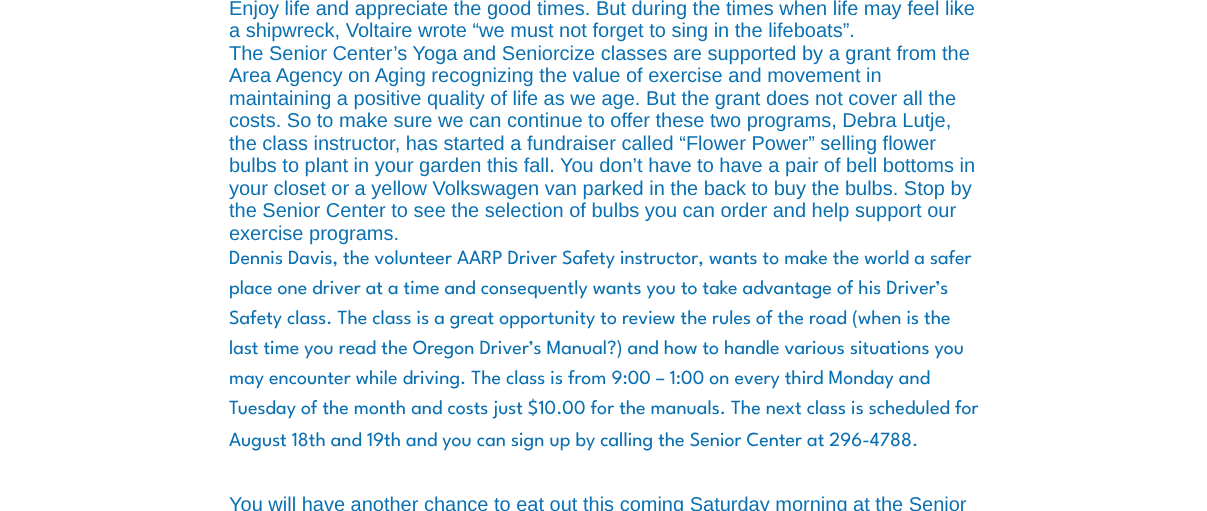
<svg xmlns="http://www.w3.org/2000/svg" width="1207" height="511">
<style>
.a{font:20px Liberation Sans;fill:#0a70b1}
.b{font:20px League Spartan;fill:#0a70b1}
</style>
<rect width="100%" height="100%" fill="#fff"/>
<text class="a" x="229" y="15">Enjoy life and appreciate the good times. But during the times when life may feel like</text>
<text class="a" x="229" y="37">a shipwreck, Voltaire wrote “we must not forget to sing in the lifeboats”.</text>
<text class="a" x="229" y="60">The Senior Center’s Yoga and Seniorcize classes are supported by a grant from the</text>
<text class="a" x="229" y="82">Area Agency on Aging recognizing the value of exercise and movement in</text>
<text class="a" x="229" y="105">maintaining a positive quality of life as we age. But the grant does not cover all the</text>
<text class="a" x="229" y="127">costs. So to make sure we can continue to offer these two programs, Debra Lutje,</text>
<text class="a" x="229" y="150">the class instructor, has started a fundraiser called “Flower Power” selling flower</text>
<text class="a" x="229" y="172">bulbs to plant in your garden this fall. You don’t have to have a pair of bell bottoms in</text>
<text class="a" x="229" y="195">your closet or a yellow Volkswagen van parked in the back to buy the bulbs. Stop by</text>
<text class="a" x="229" y="217">the Senior Center to see the selection of bulbs you can order and help support our</text>
<text class="a" x="229" y="240">exercise programs.</text>
<text class="b" x="229" y="264">Dennis Davis, the volunteer AARP Driver Safety instructor, wants to make the world a safer</text>
<text class="b" x="229" y="294">place one driver at a time and consequently wants you to take advantage of his Driver’s</text>
<text class="b" x="229" y="324">Safety class. The class is a great opportunity to review the rules of the road (when is the</text>
<text class="b" x="229" y="354">last time you read the Oregon Driver’s Manual?) and how to handle various situations you</text>
<text class="b" x="229" y="384">may encounter while driving. The class is from 9:00 – 1:00 on every third Monday and</text>
<text class="b" x="229" y="414">Tuesday of the month and costs just $10.00 for the manuals. The next class is scheduled for</text>
<text class="b" x="229" y="446">August 18th and 19th and you can sign up by calling the Senior Center at 296-4788.</text>
<text class="a" x="229" y="511">You will have another chance to eat out this coming Saturday morning at the Senior</text>
</svg>
